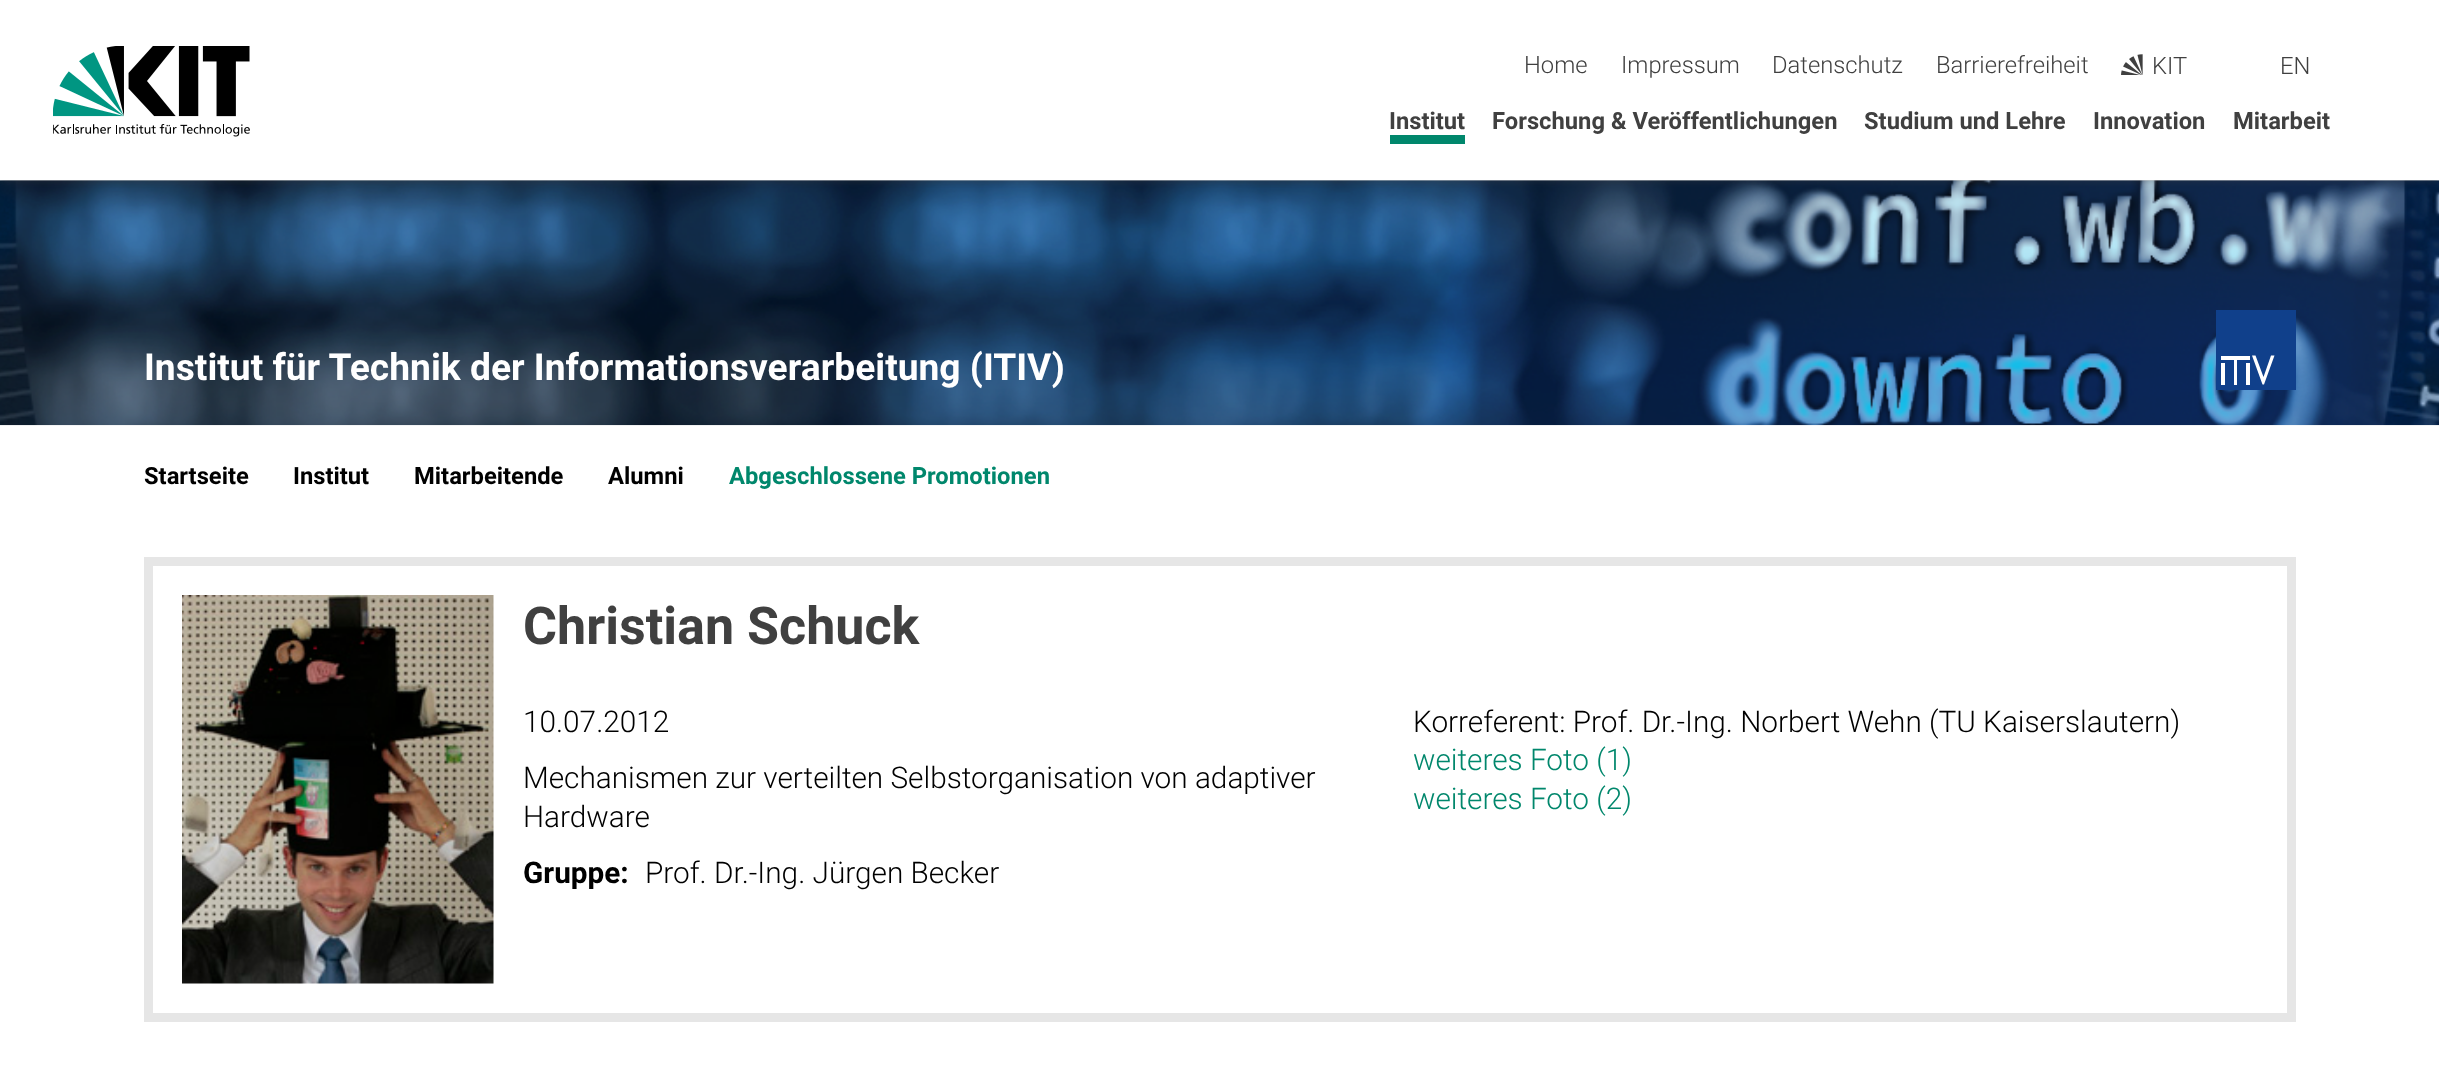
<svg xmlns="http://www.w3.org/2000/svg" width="2439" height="1070">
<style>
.a{font:300 23.75px Roboto;fill:#404040}
.b{font:bold 23.75px Roboto;fill:#404040}
.c{font:bold 37.2px Roboto;fill:#fff}
.d{font:bold 23.75px Roboto;fill:#000}
.e{font:bold 23.75px Roboto;fill:#00876c}
.f{font:bold 52px Roboto;fill:#404040}
.g{font:300 29.75px Roboto;fill:#000}
.h{font:bold 29.75px Roboto;fill:#000}
.i{font:300 29.75px Roboto;fill:#00876c}
</style>
<defs>
<clipPath id="clip1"><path d="M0 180h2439v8H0z"/></clipPath>
</defs>
<rect width="100%" height="100%" fill="#fff"/>
<image href="3.png" x="0" y="180" width="2439" height="246"/>
<g clip-path="url(#clip1)">
<path fill="#40404080" filter="blur(4.5px)" d="M0 0h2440v180H0z"/>
</g>
<image href="1.png" x="53" y="46" width="197" height="91"/>
<image href="2.png" x="2121" y="54" width="22" height="21"/>
<path fill="#00876c" d="M1390 135h75v9H1390z"/>
<path fill="#10408b" d="M2216 310h80v80H2216z"/>
<path fill="#fff" d="M2221 356h29v4H2221z"/>
<path fill="#fff" d="M2274.5 355.5h-3.5l-7.5 21.5l-8-21.5h-3.5l10.5 29h1.5z"/>
<path fill="#fff" d="M2221 363h4v22H2221z"/>
<path fill="#fff" d="M2234 359h3v26H2234z"/>
<path fill="#fff" d="M2246 363h4v22H2246z"/>
<path fill="none" stroke="#e6e6e6" stroke-width="9" d="M148.5 561.5h2143v456H148.5z"/>
<image href="4.png" x="182" y="595" width="312" height="389"/>
<text class="a" x="1524" y="73">Home</text>
<text class="a" x="1621" y="73">Impressum</text>
<text class="a" x="1772" y="73">Datenschutz</text>
<text class="a" x="1936" y="73">Barrierefreiheit</text>
<text class="a" x="2152" y="74">KIT</text>
<text class="a" x="2280" y="74">EN</text>
<text class="b" x="1389" y="129">Institut</text>
<text class="b" x="1492" y="129">Forschung &amp; Veröffentlichungen</text>
<text class="b" x="1864" y="129">Studium und Lehre</text>
<text class="b" x="2093" y="129">Innovation</text>
<text class="b" x="2233" y="129">Mitarbeit</text>
<text class="c" x="144" y="380">Institut für Technik der Informationsverarbeitung (ITIV)</text>
<text class="d" x="144" y="484">Startseite</text>
<text class="d" x="293" y="484">Institut</text>
<text class="d" x="414" y="484">Mitarbeitende</text>
<text class="d" x="608" y="484">Alumni</text>
<text class="e" x="729" y="484">Abgeschlossene Promotionen</text>
<text class="f" x="523" y="644">Christian Schuck</text>
<text class="g" x="523" y="732">10.07.2012</text>
<text class="g" x="523" y="788">Mechanismen zur verteilten Selbstorganisation von adaptiver</text>
<text class="g" x="523" y="827">Hardware</text>
<text class="h" x="523" y="883">Gruppe:</text>
<text class="g" x="645" y="883">Prof. Dr.-Ing. Jürgen Becker</text>
<text class="g" x="1413" y="732">Korreferent: Prof. Dr.-Ing. Norbert Wehn (TU Kaiserslautern)</text>
<text class="i" x="1413" y="770">weiteres Foto (1)</text>
<text class="i" x="1413" y="809">weiteres Foto (2)</text>
</svg>
